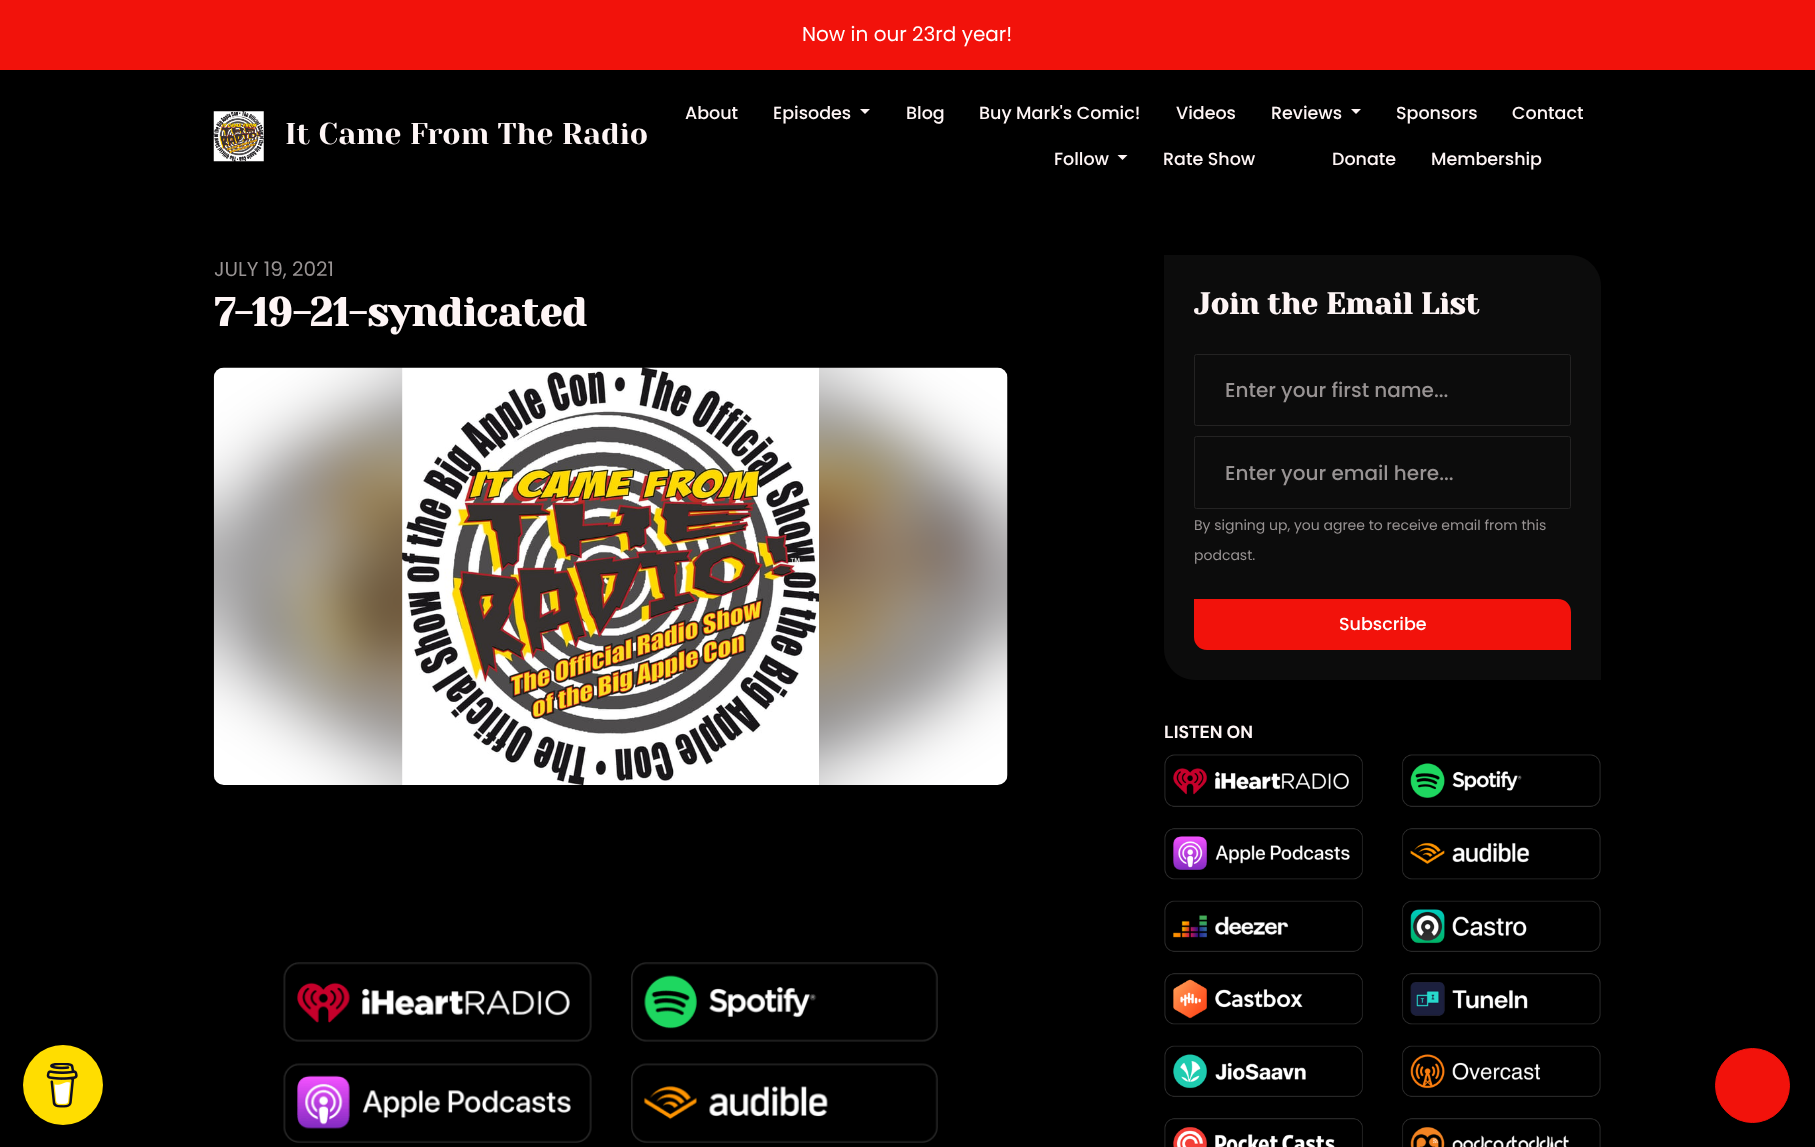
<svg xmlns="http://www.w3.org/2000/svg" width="1815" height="1147">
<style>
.a{font:20px Poppins;fill:#fff}
.b{font:30px Yeseva One;fill:#fef5f5}
.c{font:500 17.5px Poppins;fill:#fef5f5}
.d{font:20px Poppins;fill:#989393}
.e{font:bold 40px Yeseva One;fill:#fef5f5}
.f{font:bold 30px Yeseva One;fill:#fef5f5}
.g{font:500 20px Poppins;fill:#989393}
.h{font:14px Poppins;fill:#989393}
.i{font:500 17.5px Poppins;fill:#fff}
.j{font:bold 17.5px DM Sans;fill:#fef5f5}
</style>
<rect width="100%" height="100%" fill="#000"/>
<path fill="#f2120b" d="M0 0h1815v70H0z"/>
<image href="1.png" x="213" y="111" width="51" height="51"/>
<path fill="#fef5f5" d="M860 109h10l-5 5z"/>
<path fill="#fef5f5" d="M1351 109h10l-5 5z"/>
<path fill="#fef5f5" d="M1117.5 155h10l-5 5z"/>
<image href="2.png" x="213" y="367" width="795" height="418"/>
<image href="3.png" x="283" y="962" width="309" height="80"/>
<image href="4.png" x="631" y="962" width="307" height="80"/>
<image href="5.png" x="283" y="1063" width="309" height="80"/>
<image href="6.png" x="631" y="1063" width="307" height="80"/>
<path fill="#0c0c0c" d="M1164 255h406c17 0 31 14 31 31v394h-406c-17 0-31-14-31-31z"/>
<rect fill="none" stroke="#242323" x="1194.5" y="354.5" width="376" height="71" rx="2"/>
<rect fill="none" stroke="#242323" x="1194.5" y="436.5" width="376" height="72" rx="2"/>
<path fill="#f2120b" stroke="#f2120b" stroke-width="3" d="M1195.5 600.5h362.5c6.5 0 11.5 5 11.5 11.5v36.5h-362.5c-6.5 0-11.5-5-11.5-11.5z"/>
<image href="7.png" x="1164" y="754" width="199" height="53"/>
<image href="8.png" x="1402" y="754" width="199" height="53"/>
<image href="9.png" x="1164" y="828" width="199" height="52"/>
<image href="10.png" x="1402" y="828" width="199" height="52"/>
<image href="11.png" x="1164" y="900" width="199" height="52"/>
<image href="12.png" x="1402" y="900" width="199" height="52"/>
<image href="13.png" x="1164" y="973" width="199" height="52"/>
<image href="14.png" x="1402" y="973" width="199" height="52"/>
<image href="15.png" x="1164" y="1045" width="199" height="52"/>
<image href="16.png" x="1402" y="1045" width="199" height="52"/>
<image href="17.png" x="1164" y="1118" width="199" height="29"/>
<image href="18.png" x="1402" y="1118" width="199" height="29"/>
<circle fill="#fd0" cx="63" cy="1085" r="40"/>
<image href="19.png" x="46" y="1063" width="32" height="45"/>
<circle fill="#f2120b" stroke="#f2120b" cx="1752.5" cy="1085.5" r="37"/>
<text class="a" x="802" y="41">Now in our 23rd year!</text>
<text class="b" x="285" y="144">It Came From The Radio</text>
<text class="c" x="685" y="119">About</text>
<text class="c" x="773" y="119">Episodes</text>
<text class="c" x="906" y="119">Blog</text>
<text class="c" x="979" y="119">Buy Mark's Comic!</text>
<text class="c" x="1176" y="119">Videos</text>
<text class="c" x="1271" y="119">Reviews</text>
<text class="c" x="1396" y="119">Sponsors</text>
<text class="c" x="1512" y="119">Contact</text>
<text class="c" x="1054" y="165">Follow</text>
<text class="c" x="1163" y="165">Rate Show</text>
<text class="c" x="1332" y="165">Donate</text>
<text class="c" x="1431" y="165">Membership</text>
<text class="d" x="214" y="276">JULY 19, 2021</text>
<text class="e" x="214" y="326">7-19-21-syndicated</text>
<text class="f" x="1194" y="314">Join the Email List</text>
<text class="g" x="1225" y="397">Enter your first name...</text>
<text class="g" x="1225" y="480">Enter your email here...</text>
<text class="h" x="1194" y="530">By signing up, you agree to receive email from this</text>
<text class="h" x="1194" y="560">podcast.</text>
<text class="i" x="1339" y="630">Subscribe</text>
<text class="j" x="1164" y="738">LISTEN ON</text>
</svg>
